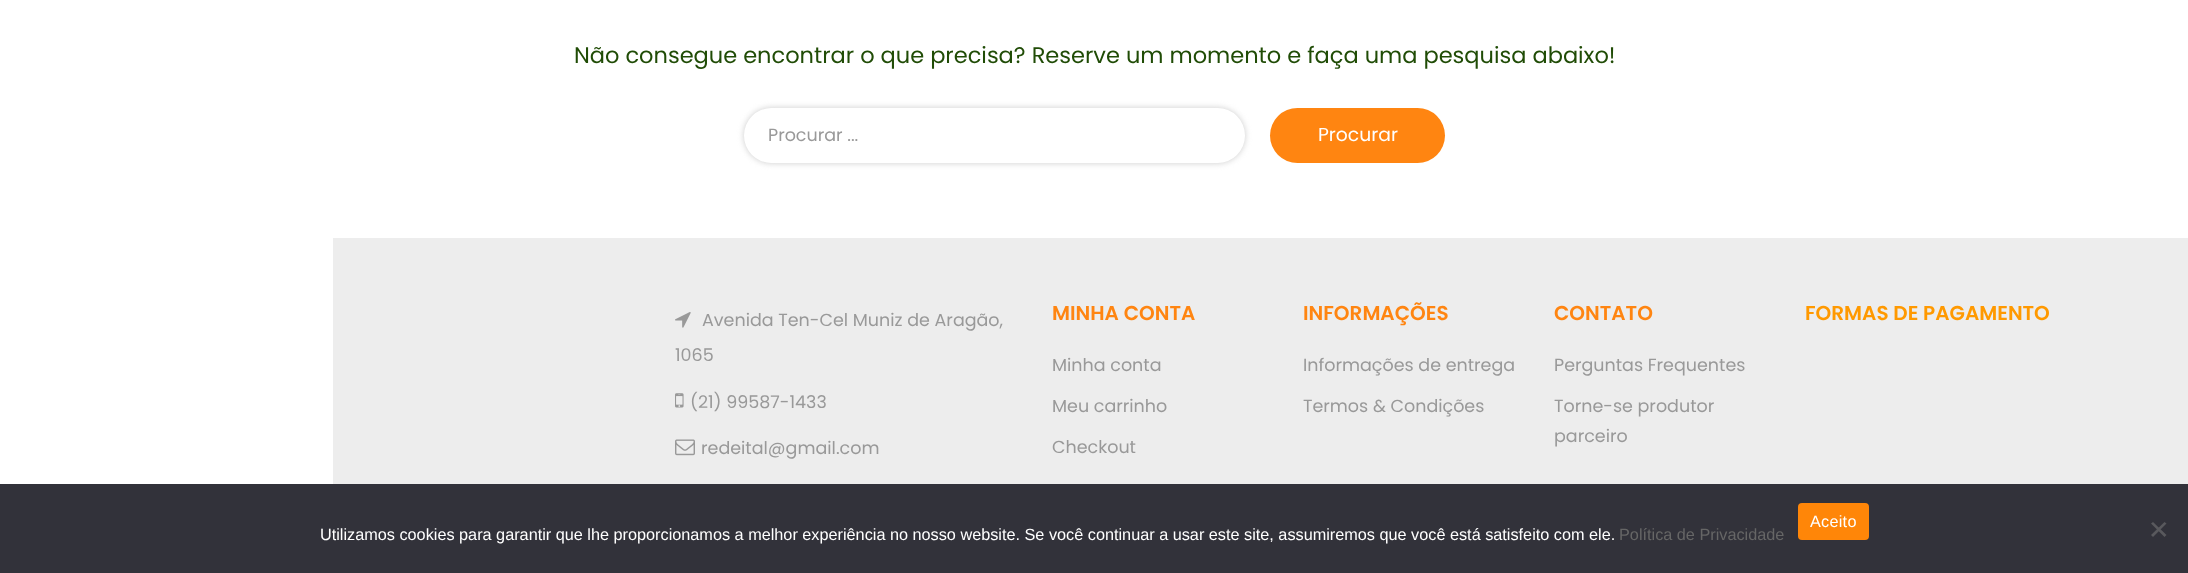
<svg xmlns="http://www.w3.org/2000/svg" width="2188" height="573">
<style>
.a{font:22.5px Poppins;fill:#204c06}
.b{font:17.5px Poppins;fill:#999}
.c{font:18.75px Poppins;fill:#fff}
.d{font:600 20px Poppins;fill:#ff8511}
.e{font:600 20px Poppins;fill:#f90}
.f{font:16.25px Liberation Sans;fill:#fff}
.g{font:16.25px Liberation Sans;fill:#666}
.h{font:16.25px Liberation Sans;letter-spacing:0.25px;fill:#fff}
</style>
<rect width="100%" height="100%" fill="#fff"/>
<rect fill="#ccc" filter="blur(3px)" x="744" y="108" width="501" height="55" rx="27.5"/>
<rect fill="#fff" x="744" y="108" width="501" height="55" rx="27.5"/>
<rect fill="#ff8511" x="1270" y="108" width="175" height="55" rx="27.5"/>
<path fill="#ededed" d="M333 238h1855v246H333z"/>
<image href="1.png" x="675" y="312" width="16" height="16"/>
<image href="2.png" x="675" y="393" width="9" height="15"/>
<image href="3.png" x="675" y="439" width="20" height="17"/>
<path fill="#32323a" d="M0 484h2188v89H0z"/>
<rect fill="#ff8608" x="1798" y="503" width="71" height="37" rx="4"/>
<path fill="#59595d" d="M2164.5 522l2 1.5l-13.5 13.5l-2-2z"/>
<path fill="#59595d" d="M2151 523.5l2-1.5l13.5 13l-2 2z"/>
<text class="a" x="574" y="63">Não consegue encontrar o que precisa? Reserve um momento e faça uma pesquisa abaixo!</text>
<text class="b" x="768" y="141">Procurar ...</text>
<text class="c" x="1318" y="141">Procurar</text>
<text class="b" x="702" y="326">Avenida Ten-Cel Muniz de Aragão,</text>
<text class="b" x="675" y="361">1065</text>
<text class="b" x="690" y="408">(21) 99587-1433</text>
<text class="b" x="701" y="454">redeital@gmail.com</text>
<text class="d" x="1052" y="320">MINHA CONTA</text>
<text class="b" x="1052" y="371">Minha conta</text>
<text class="b" x="1052" y="412">Meu carrinho</text>
<text class="b" x="1052" y="453">Checkout</text>
<text class="d" x="1303" y="320">INFORMAÇÕES</text>
<text class="b" x="1303" y="371">Informações de entrega</text>
<text class="b" x="1303" y="412">Termos &amp; Condições</text>
<text class="d" x="1554" y="320">CONTATO</text>
<text class="b" x="1554" y="371">Perguntas Frequentes</text>
<text class="b" x="1554" y="412">Torne-se produtor</text>
<text class="b" x="1554" y="442">parceiro</text>
<text class="e" x="1805" y="320">FORMAS DE PAGAMENTO</text>
<text class="f" x="320" y="540">Utilizamos cookies para garantir que lhe proporcionamos a melhor experiência no nosso website. Se você continuar a usar este site, assumiremos que você está satisfeito com ele.</text>
<text class="g" x="1619" y="540">Política de Privacidade</text>
<text class="h" x="1810" y="527">Aceito</text>
</svg>
